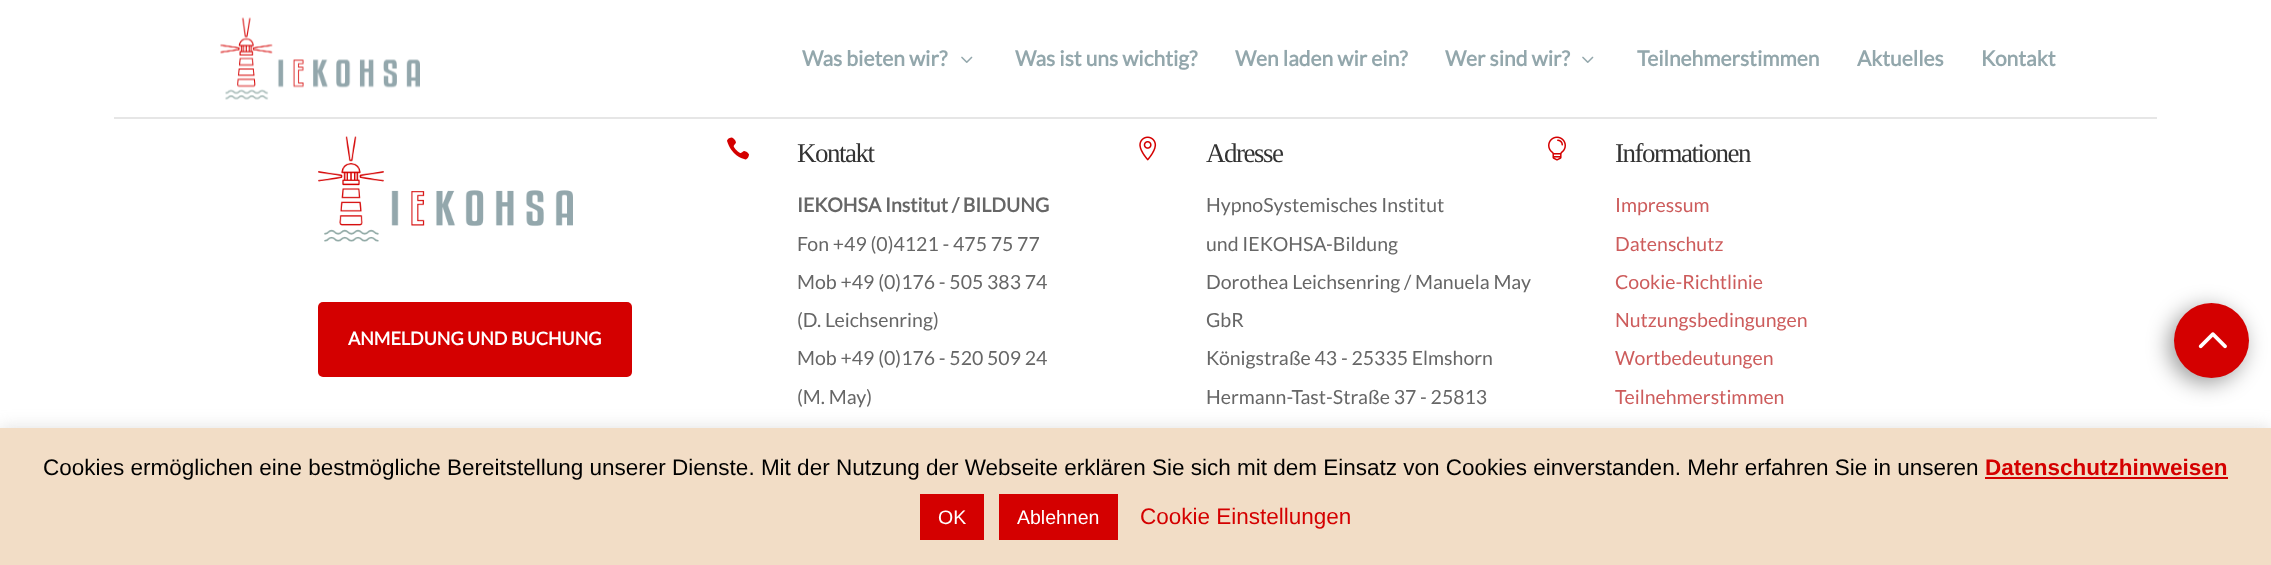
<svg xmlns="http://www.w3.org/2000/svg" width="2271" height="565">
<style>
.a{font:bold 21px Lato;fill:#93a7ac}
.b{font:bold 18px Lato;fill:#fff}
.c{font:27px Liberation Serif;letter-spacing:-1.5px;fill:#333}
.d{font:bold 19.5px Lato;fill:#666}
.e{font:19.5px Lato;fill:#666}
.f{font:19.5px Lato;fill:#cd5c5c}
.g{font:22.5px Liberation Sans;fill:#000}
.h{font:bold 22.5px Liberation Sans;fill:#d40000}
.i{font:19.5px Liberation Sans;fill:#fff}
.j{font:22.5px Liberation Sans;fill:#d40000}
</style>
<rect width="100%" height="100%" fill="#fff"/>
<path fill="#e6e6e6" d="M114 117h2043v2H114z"/>
<image href="1.png" x="220" y="17" width="200" height="83"/>
<image href="2.png" x="961" y="56" width="12" height="7"/>
<image href="2.png" x="1582" y="56" width="12" height="7"/>
<image href="3.png" x="318" y="136" width="255" height="106"/>
<rect fill="#d40000" x="318" y="302" width="314" height="75" rx="5"/>
<image href="4.png" x="727" y="137" width="22" height="23"/>
<image href="5.png" x="1139" y="136" width="18" height="25"/>
<image href="6.png" x="1548" y="136" width="18" height="25"/>
<rect fill="#00000066" filter="blur(11px)" x="2169" y="308" width="75" height="75" rx="37.5"/>
<circle fill="#d40000" cx="2211.5" cy="340.5" r="37.5"/>
<image href="7.png" x="2198" y="332" width="29" height="17"/>
<path fill="#acabab4d" filter="blur(7.5px)" d="M0 426h2271v138H0z"/>
<path fill="#f2ddc6" d="M0 428h2271v137H0z"/>
<path fill="#d40000" d="M1985 477h243v2H1985z"/>
<path fill="#d40000" d="M920 494h64v46H920z"/>
<path fill="#d40000" d="M999 494h119v46H999z"/>
<text class="a" x="802" y="66">Was bieten wir?</text>
<text class="a" x="1015" y="66">Was ist uns wichtig?</text>
<text class="a" x="1235" y="66">Wen laden wir ein?</text>
<text class="a" x="1445" y="66">Wer sind wir?</text>
<text class="a" x="1637" y="66">Teilnehmerstimmen</text>
<text class="a" x="1857" y="66">Aktuelles</text>
<text class="a" x="1981" y="66">Kontakt</text>
<text class="b" x="348" y="345">ANMELDUNG UND BUCHUNG</text>
<text class="c" x="797" y="162">Kontakt</text>
<text class="d" x="797" y="212">IEKOHSA Institut / BILDUNG</text>
<text class="e" x="797" y="251">Fon +49 (0)4121 - 475 75 77</text>
<text class="e" x="797" y="289">Mob +49 (0)176 - 505 383 74</text>
<text class="e" x="797" y="327">(D. Leichsenring)</text>
<text class="e" x="797" y="365">Mob +49 (0)176 - 520 509 24</text>
<text class="e" x="797" y="404">(M. May)</text>
<text class="c" x="1206" y="162">Adresse</text>
<text class="e" x="1206" y="212">HypnoSystemisches Institut</text>
<text class="e" x="1206" y="251">und IEKOHSA-Bildung</text>
<text class="e" x="1206" y="289">Dorothea Leichsenring / Manuela May</text>
<text class="e" x="1206" y="327">GbR</text>
<text class="e" x="1206" y="365">Königstraße 43 - 25335 Elmshorn</text>
<text class="e" x="1206" y="404">Hermann-Tast-Straße 37 - 25813</text>
<text class="c" x="1615" y="162">Informationen</text>
<text class="f" x="1615" y="212">Impressum</text>
<text class="f" x="1615" y="251">Datenschutz</text>
<text class="f" x="1615" y="289">Cookie-Richtlinie</text>
<text class="f" x="1615" y="327">Nutzungsbedingungen</text>
<text class="f" x="1615" y="365">Wortbedeutungen</text>
<text class="f" x="1615" y="404">Teilnehmerstimmen</text>
<text class="g" x="43" y="475">Cookies ermöglichen eine bestmögliche Bereitstellung unserer Dienste. Mit der Nutzung der Webseite erklären Sie sich mit dem Einsatz von Cookies einverstanden. Mehr erfahren Sie in unseren</text>
<text class="h" x="1985" y="475">Datenschutzhinweisen</text>
<text class="i" x="938" y="524">OK</text>
<text class="i" x="1017" y="524">Ablehnen</text>
<text class="j" x="1140" y="524">Cookie Einstellungen</text>
</svg>
